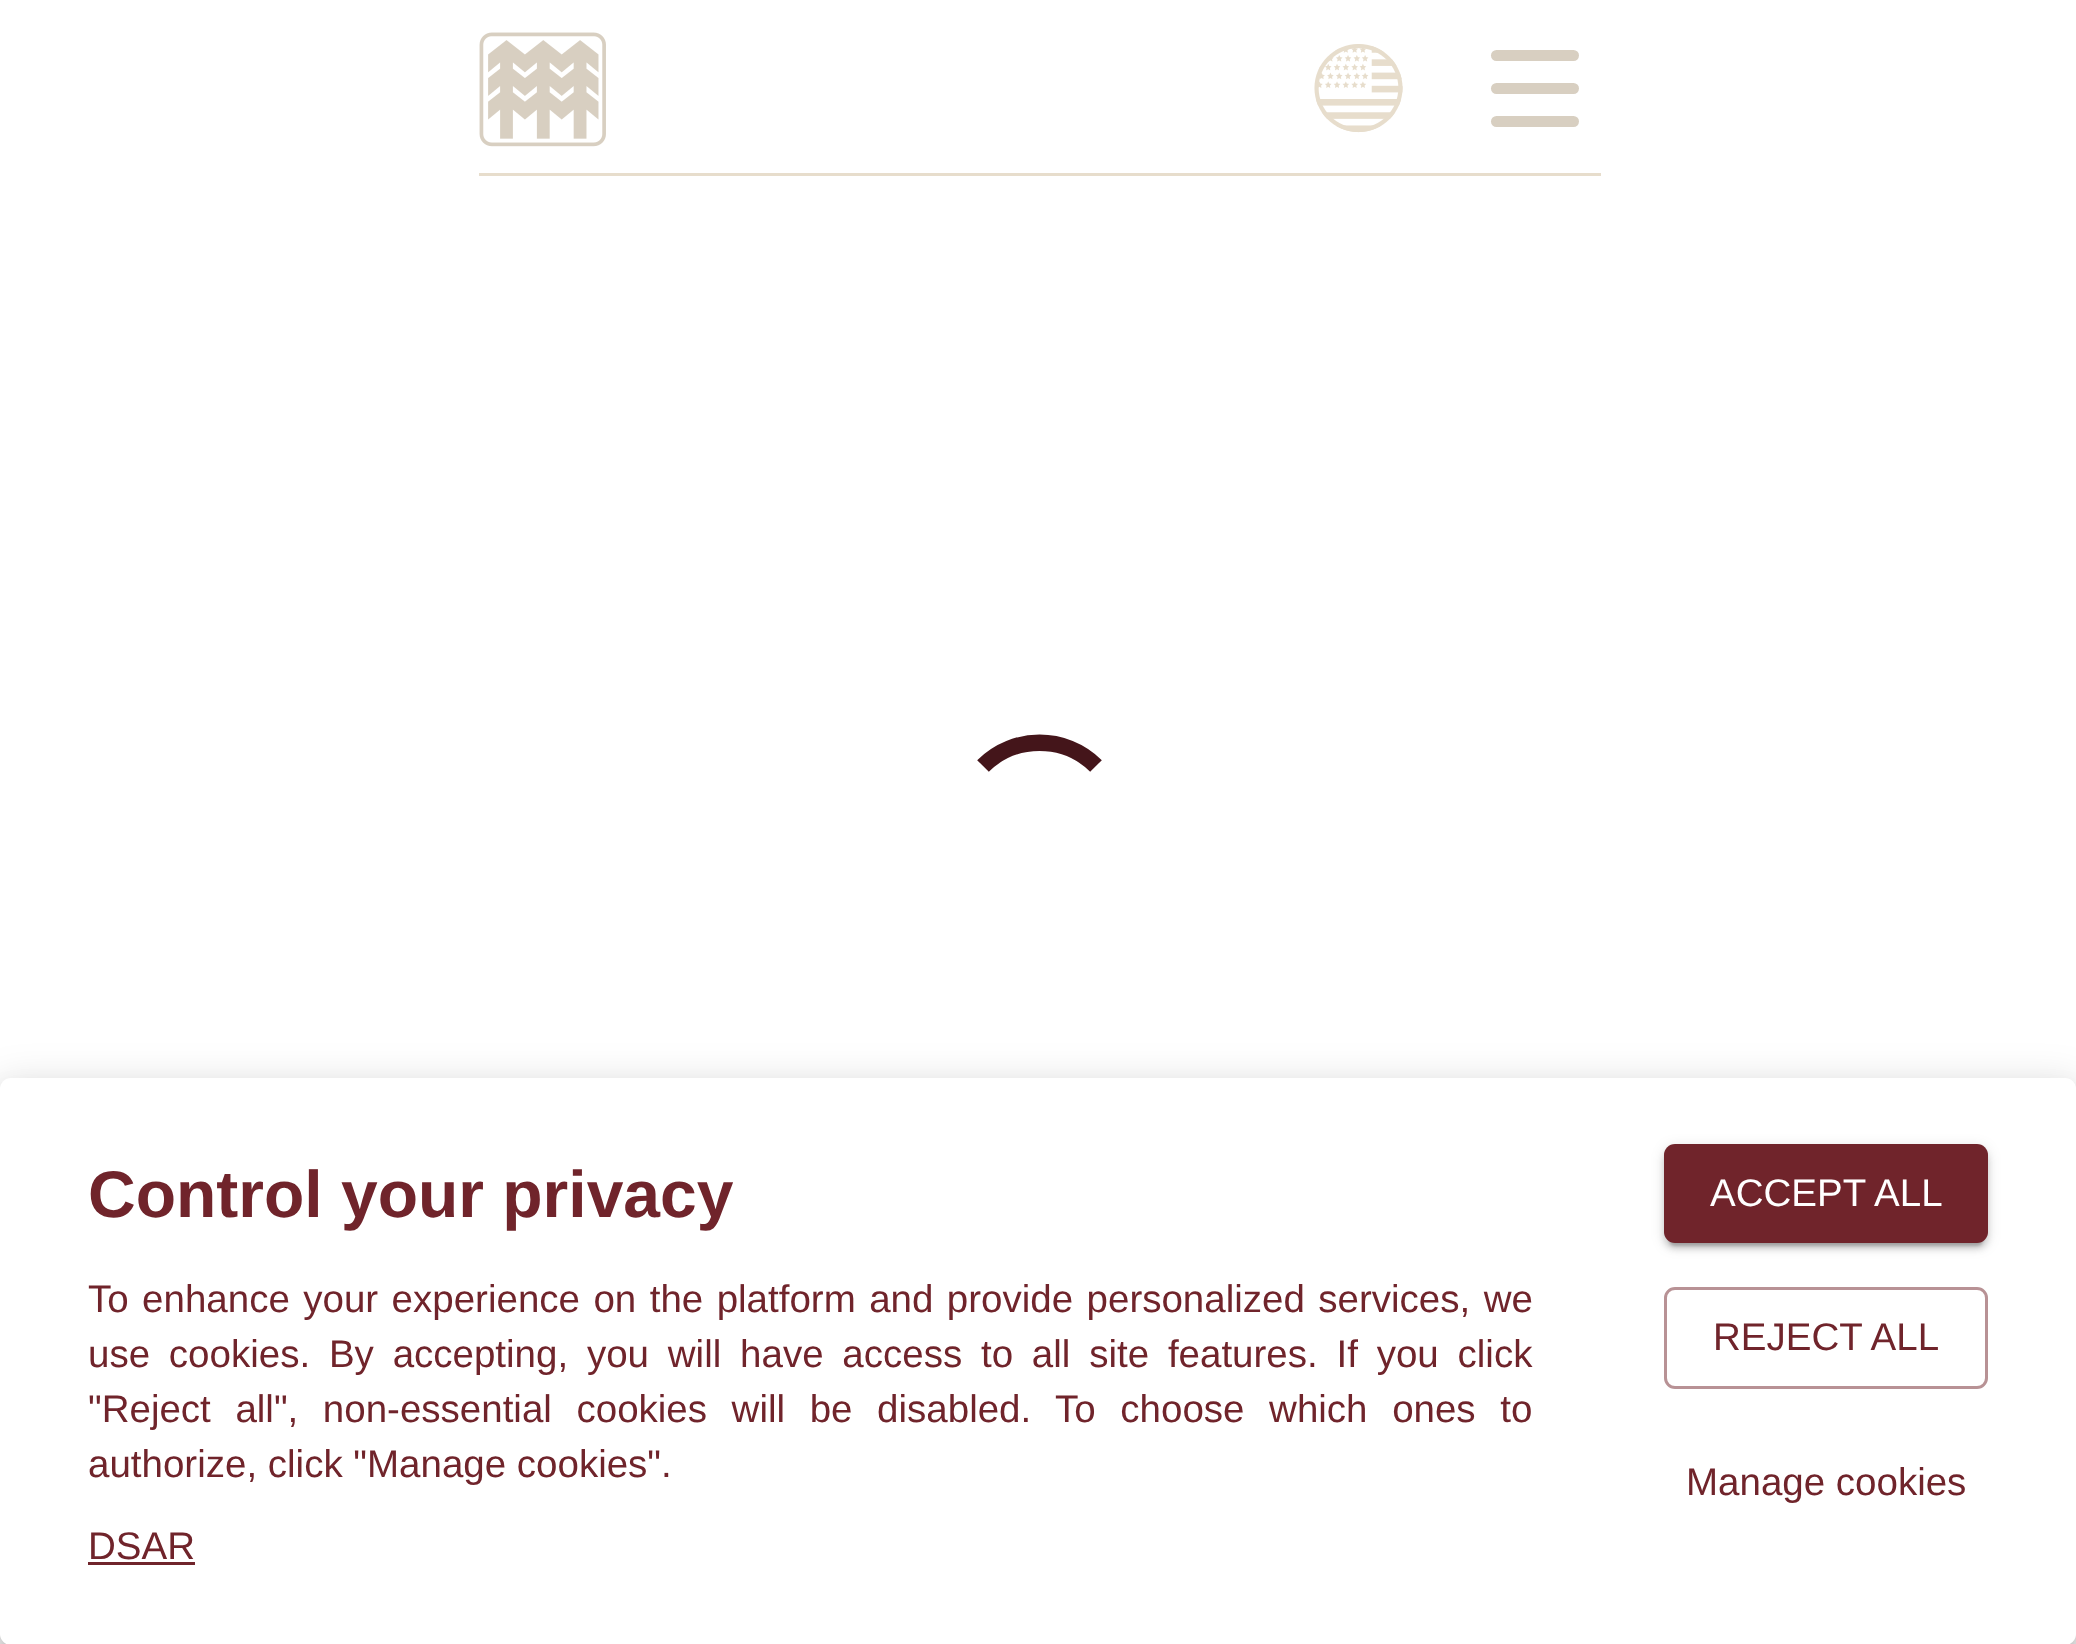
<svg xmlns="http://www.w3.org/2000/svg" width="2076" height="1644">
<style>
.a{font:bold 66px Liberation Sans;fill:#70242b}
.b{font:38.5px Liberation Sans;fill:#70242b}
.c{font:38.5px Liberation Sans;fill:#fff}
</style>
<rect width="100%" height="100%" fill="#fff"/>
<image href="1.png" x="479" y="32" width="127" height="115"/>
<image href="2.png" x="1314" y="44" width="89" height="89"/>
<rect fill="#d8cfc1" x="1491" y="50" width="88" height="11" rx="5.5"/>
<rect fill="#d8cfc1" x="1491" y="83" width="88" height="11" rx="5.5"/>
<rect fill="#d8cfc1" x="1491" y="116" width="88" height="11" rx="5.5"/>
<path fill="#e7ddcc" d="M479 173h1122v3H479z"/>
<path fill="none" stroke="#44151a" stroke-width="16.5" d="M983 766c31-31 82-31 113 0"/>
<rect fill="#0000001f" filter="blur(19px)" x="-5" y="1081" width="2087" height="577" rx="17"/>
<rect fill="#00000024" filter="blur(14px)" x="-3" y="1097" width="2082" height="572" rx="14"/>
<rect fill="#00000033" filter="blur(7px)" x="8" y="1100" width="2060" height="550" rx="3"/>
<rect fill="#fff" y="1078" width="2076" height="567" rx="11"/>
<path fill="#70242b" d="M88 1562h107v3H88z"/>
<rect fill="#0000001f" filter="blur(7px)" x="1664" y="1147" width="324" height="99" rx="11"/>
<rect fill="#00000024" filter="blur(3px)" x="1664" y="1150" width="324" height="99" rx="11"/>
<rect fill="#00000033" filter="blur(1.5px)" x="1669" y="1158" width="314" height="88" rx="6"/>
<rect fill="#70242b" x="1664" y="1144" width="324" height="99" rx="11"/>
<rect fill="none" stroke="#b89295" stroke-width="3" x="1665.5" y="1288.5" width="321" height="99" rx="9.5"/>
<text class="a" x="88" y="1217">Control your privacy</text>
<text class="b" x="88" y="1312" word-spacing="2.75">To enhance your experience on the platform and provide personalized services, we</text>
<text class="b" x="88" y="1367" word-spacing="8.1">use cookies. By accepting, you will have access to all site features. If you click</text>
<text class="b" x="88" y="1422" word-spacing="13.9">"Reject all", non-essential cookies will be disabled. To choose which ones to</text>
<text class="b" x="88" y="1477">authorize, click "Manage cookies".</text>
<text class="b" x="88" y="1559">DSAR</text>
<text class="c" x="1710" y="1206">ACCEPT ALL</text>
<text class="b" x="1713" y="1350">REJECT ALL</text>
<text class="b" x="1686" y="1495">Manage cookies</text>
</svg>
